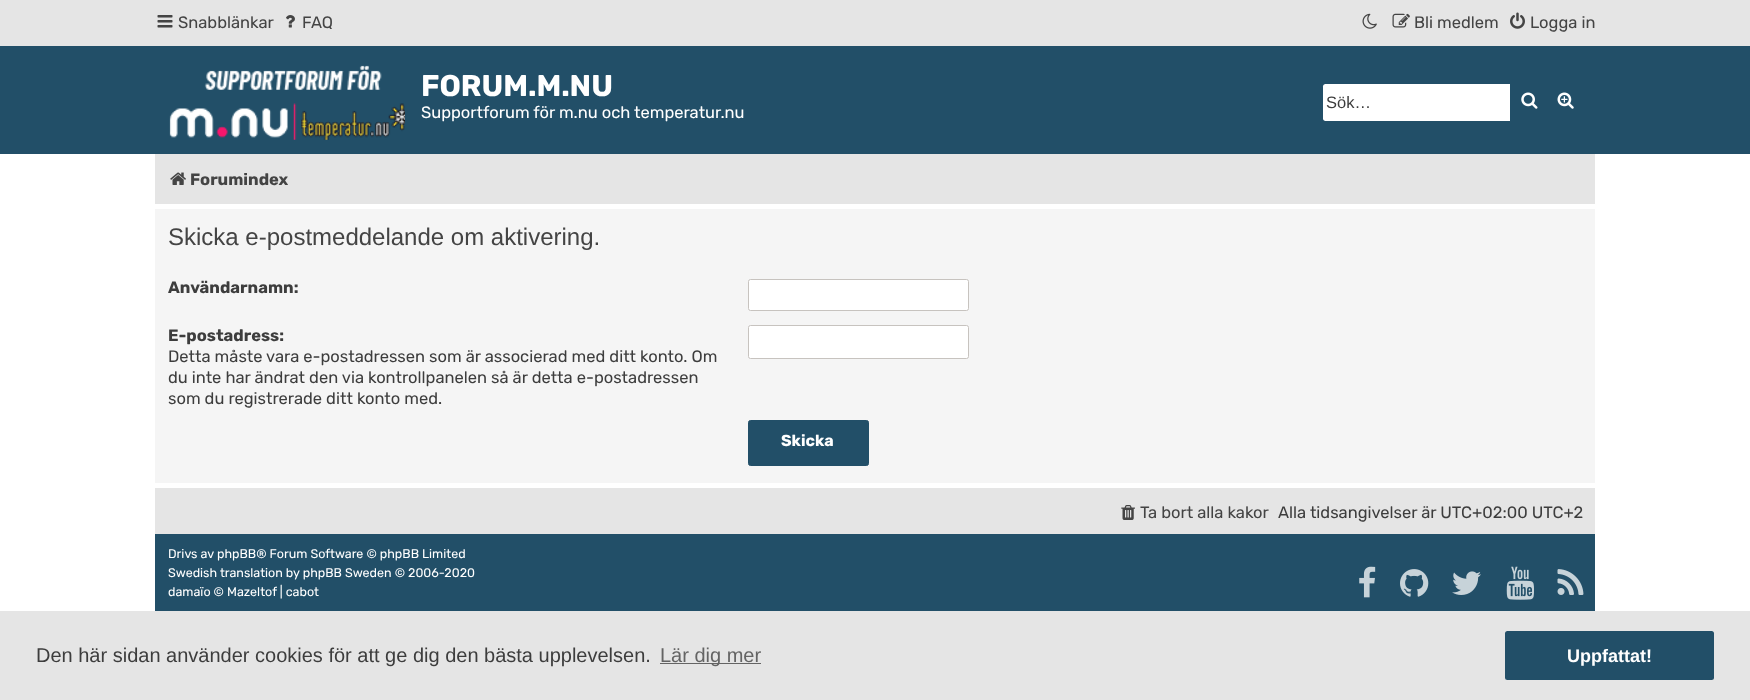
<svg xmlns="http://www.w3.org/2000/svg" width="1750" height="700">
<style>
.a{font:16.5px Rubik;fill:#444}
.b{font:bold 30px Rubik;fill:#fff}
.c{font:16.5px Rubik;fill:#fff}
.d{font:16.5px Liberation Sans;fill:#3d3d3d}
.e{font:bold 16.5px Rubik;fill:#444}
.f{font:24px Liberation Sans;fill:#444}
.g{font:bold 16.5px Rubik;fill:#3d3d3d}
.h{font:16.5px Rubik;fill:#3d3d3d}
.i{font:bold 16px Rubik;fill:#fff}
.j{font:12.5px Rubik;fill:#fff}
.k{font:20px Liberation Sans;fill:#3d3d3d}
.l{font:20px Liberation Sans;fill:#646464}
.m{font:bold 18px Liberation Sans;fill:#fff}
</style>
<rect width="100%" height="100%" fill="#fff"/>
<path fill="#e5e5e5" d="M0 0h1750v46H0z"/>
<image href="1.png" x="157" y="15" width="16" height="13"/>
<image href="2.png" x="286" y="15" width="9" height="13"/>
<image href="3.png" x="1362" y="13" width="15" height="16"/>
<image href="4.png" x="1392" y="13" width="18" height="15"/>
<image href="5.png" x="1510" y="12" width="15" height="17"/>
<path fill="#224f68" d="M0 46h1750v108H0z"/>
<image href="6.png" x="169" y="65" width="236" height="75"/>
<path fill="#fff" d="M1325.5 84h184.5v37h-184.5c-1.5 0-2.5-1-2.5-2.5v-32c0-1.5 1-2.5 2.5-2.5z"/>
<image href="7.png" x="1521" y="92" width="17" height="17"/>
<image href="8.png" x="1557" y="92" width="17" height="17"/>
<path fill="#e5e5e5" d="M155 154h1440v50H155z"/>
<image href="9.png" x="170" y="172" width="16" height="13"/>
<path fill="#f5f5f5" d="M155 209h1440v274H155z"/>
<rect fill="#fff" stroke="#c7c3bf" x="748.5" y="279.5" width="220" height="31" rx="2"/>
<rect fill="#fff" stroke="#c7c3bf" x="748.5" y="325.5" width="220" height="33" rx="2"/>
<rect fill="#224f68" stroke="#224f68" x="748.5" y="420.5" width="120" height="45" rx="2"/>
<path fill="#e5e5e5" d="M155 488h1440v46H155z"/>
<image href="10.png" x="1121" y="505" width="14" height="15"/>
<path fill="#224f68" d="M155 534h1440v77H155z"/>
<image href="11.png" x="1359" y="566" width="17" height="32"/>
<image href="12.png" x="1400" y="569" width="29" height="28"/>
<image href="13.png" x="1452" y="571" width="29" height="24"/>
<image href="14.png" x="1506" y="566" width="28" height="34"/>
<image href="15.png" x="1557" y="569" width="27" height="26"/>
<path fill="#e5e5e5" d="M0 611h1750v89H0z"/>
<path fill="#646464" d="M660 663h101v1H660z"/>
<rect fill="#224f68" x="1505" y="631" width="209" height="49" rx="2.5"/>
<text class="a" x="178" y="28">Snabblänkar</text>
<text class="a" x="302" y="28">FAQ</text>
<text class="a" x="1414" y="28">Bli medlem</text>
<text class="a" x="1530" y="28">Logga in</text>
<text class="b" x="421" y="96">FORUM.M.NU</text>
<text class="c" x="421" y="118">Supportforum för m.nu och temperatur.nu</text>
<text class="d" x="1326" y="108">Sök…</text>
<text class="e" x="190" y="185">Forumindex</text>
<text class="f" x="168" y="245">Skicka e-postmeddelande om aktivering.</text>
<text class="g" x="168" y="293">Användarnamn:</text>
<text class="g" x="168" y="341">E-postadress:</text>
<text class="h" x="168" y="362">Detta måste vara e-postadressen som är associerad med ditt konto. Om</text>
<text class="h" x="168" y="383">du inte har ändrat den via kontrollpanelen så är detta e-postadressen</text>
<text class="h" x="168" y="404">som du registrerade ditt konto med.</text>
<text class="i" x="781" y="446">Skicka</text>
<text class="a" x="1140" y="518">Ta bort alla kakor</text>
<text class="h" x="1278" y="518">Alla tidsangivelser är UTC+02:00 UTC+2</text>
<text class="j" x="168" y="558">Drivs av phpBB® Forum Software © phpBB Limited</text>
<text class="j" x="168" y="577">Swedish translation by phpBB Sweden © 2006-2020</text>
<text class="j" x="168" y="596">damaïo © Mazeltof | cabot</text>
<text class="k" x="36" y="662">Den här sidan använder cookies för att ge dig den bästa upplevelsen.</text>
<text class="l" x="660" y="662">Lär dig mer</text>
<text class="m" x="1567" y="662">Uppfattat!</text>
</svg>
